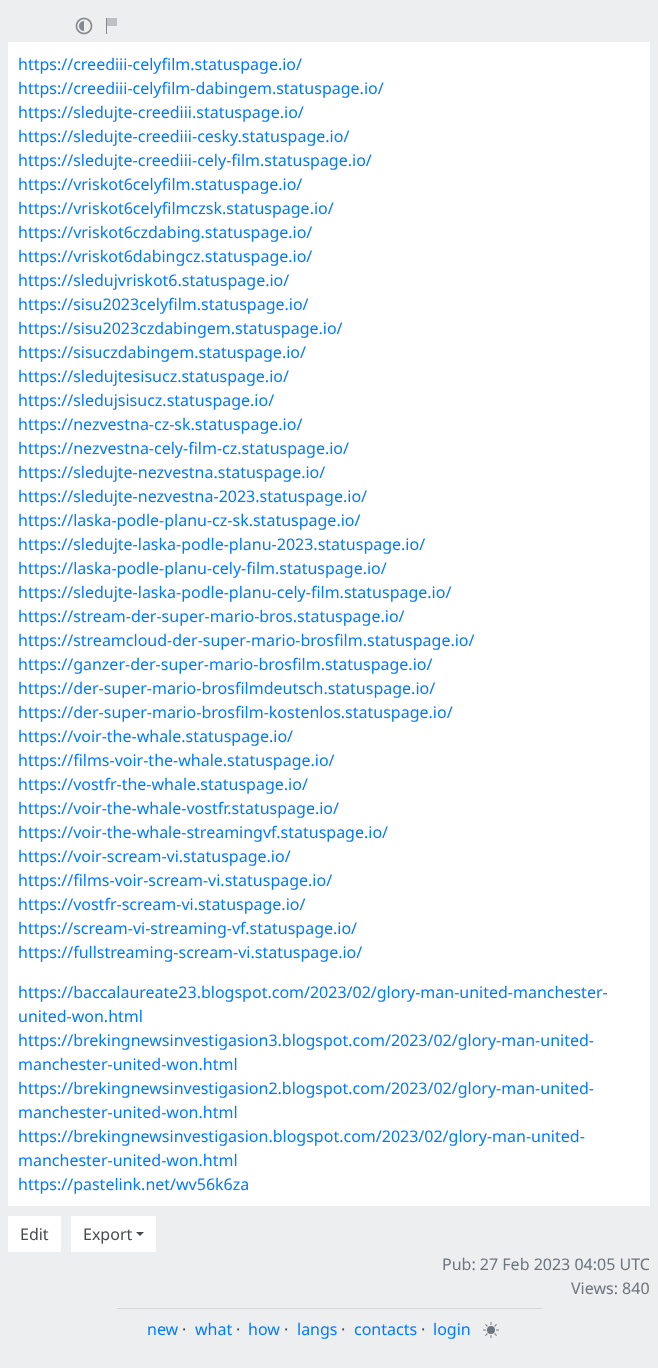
<svg xmlns="http://www.w3.org/2000/svg" width="658" height="1368">
<style>
.a{font:16px Noto Sans;fill:#007bff}
.b{font:16px Noto Sans;fill:#464a4c}
.c{font:16px Noto Sans;fill:#6c757d}
</style>
<rect width="100%" height="100%" fill="#edeef0"/>
<image href="1.png" x="75" y="17" width="18" height="18"/>
<path fill="#83898e" d="M106 18h1v16H106z"/>
<path fill="#bdc0c2" d="M107 18h10v8H107z"/>
<path fill="#fff" d="M8 42h642v1164H8z"/>
<path fill="#fff" d="M8 1216h53v36H8z"/>
<path fill="#fff" d="M71 1216h85v36H71z"/>
<path fill="#464a4c" d="M136 1232h8l-4 4z"/>
<path fill="#d5d6d8" d="M117 1308h425v1H117z"/>
<image href="2.png" x="483" y="1322" width="16" height="16"/>
<text class="a" x="18" y="70">https://creediii-celyfilm.statuspage.io/</text>
<text class="a" x="18" y="94">https://creediii-celyfilm-dabingem.statuspage.io/</text>
<text class="a" x="18" y="118">https://sledujte-creediii.statuspage.io/</text>
<text class="a" x="18" y="142">https://sledujte-creediii-cesky.statuspage.io/</text>
<text class="a" x="18" y="166">https://sledujte-creediii-cely-film.statuspage.io/</text>
<text class="a" x="18" y="190">https://vriskot6celyfilm.statuspage.io/</text>
<text class="a" x="18" y="214">https://vriskot6celyfilmczsk.statuspage.io/</text>
<text class="a" x="18" y="238">https://vriskot6czdabing.statuspage.io/</text>
<text class="a" x="18" y="262">https://vriskot6dabingcz.statuspage.io/</text>
<text class="a" x="18" y="286">https://sledujvriskot6.statuspage.io/</text>
<text class="a" x="18" y="310">https://sisu2023celyfilm.statuspage.io/</text>
<text class="a" x="18" y="334">https://sisu2023czdabingem.statuspage.io/</text>
<text class="a" x="18" y="358">https://sisuczdabingem.statuspage.io/</text>
<text class="a" x="18" y="382">https://sledujtesisucz.statuspage.io/</text>
<text class="a" x="18" y="406">https://sledujsisucz.statuspage.io/</text>
<text class="a" x="18" y="430">https://nezvestna-cz-sk.statuspage.io/</text>
<text class="a" x="18" y="454">https://nezvestna-cely-film-cz.statuspage.io/</text>
<text class="a" x="18" y="478">https://sledujte-nezvestna.statuspage.io/</text>
<text class="a" x="18" y="502">https://sledujte-nezvestna-2023.statuspage.io/</text>
<text class="a" x="18" y="526">https://laska-podle-planu-cz-sk.statuspage.io/</text>
<text class="a" x="18" y="550">https://sledujte-laska-podle-planu-2023.statuspage.io/</text>
<text class="a" x="18" y="574">https://laska-podle-planu-cely-film.statuspage.io/</text>
<text class="a" x="18" y="598">https://sledujte-laska-podle-planu-cely-film.statuspage.io/</text>
<text class="a" x="18" y="622">https://stream-der-super-mario-bros.statuspage.io/</text>
<text class="a" x="18" y="646">https://streamcloud-der-super-mario-brosfilm.statuspage.io/</text>
<text class="a" x="18" y="670">https://ganzer-der-super-mario-brosfilm.statuspage.io/</text>
<text class="a" x="18" y="694">https://der-super-mario-brosfilmdeutsch.statuspage.io/</text>
<text class="a" x="18" y="718">https://der-super-mario-brosfilm-kostenlos.statuspage.io/</text>
<text class="a" x="18" y="742">https://voir-the-whale.statuspage.io/</text>
<text class="a" x="18" y="766">https://films-voir-the-whale.statuspage.io/</text>
<text class="a" x="18" y="790">https://vostfr-the-whale.statuspage.io/</text>
<text class="a" x="18" y="814">https://voir-the-whale-vostfr.statuspage.io/</text>
<text class="a" x="18" y="838">https://voir-the-whale-streamingvf.statuspage.io/</text>
<text class="a" x="18" y="862">https://voir-scream-vi.statuspage.io/</text>
<text class="a" x="18" y="886">https://films-voir-scream-vi.statuspage.io/</text>
<text class="a" x="18" y="910">https://vostfr-scream-vi.statuspage.io/</text>
<text class="a" x="18" y="934">https://scream-vi-streaming-vf.statuspage.io/</text>
<text class="a" x="18" y="958">https://fullstreaming-scream-vi.statuspage.io/</text>
<text class="a" x="18" y="998">https://baccalaureate23.blogspot.com/2023/02/glory-man-united-manchester-</text>
<text class="a" x="18" y="1022">united-won.html</text>
<text class="a" x="18" y="1046">https://brekingnewsinvestigasion3.blogspot.com/2023/02/glory-man-united-</text>
<text class="a" x="18" y="1070">manchester-united-won.html</text>
<text class="a" x="18" y="1094">https://brekingnewsinvestigasion2.blogspot.com/2023/02/glory-man-united-</text>
<text class="a" x="18" y="1118">manchester-united-won.html</text>
<text class="a" x="18" y="1142">https://brekingnewsinvestigasion.blogspot.com/2023/02/glory-man-united-</text>
<text class="a" x="18" y="1166">manchester-united-won.html</text>
<text class="a" x="18" y="1190">https://pastelink.net/wv56k6za</text>
<text class="b" x="20" y="1240">Edit</text>
<text class="b" x="83" y="1240">Export</text>
<text class="c" x="442" y="1270">Pub: 27 Feb 2023 04:05 UTC</text>
<text class="c" x="571" y="1294">Views: 840</text>
<text class="a" x="147" y="1335">new</text>
<text class="b" x="182" y="1335">·</text>
<text class="a" x="195" y="1335">what</text>
<text class="b" x="236" y="1335">·</text>
<text class="a" x="248" y="1335">how</text>
<text class="b" x="284" y="1335">·</text>
<text class="a" x="297" y="1335">langs</text>
<text class="b" x="341" y="1335">·</text>
<text class="a" x="354" y="1335">contacts</text>
<text class="b" x="421" y="1335">·</text>
<text class="a" x="433" y="1335">login</text>
</svg>
